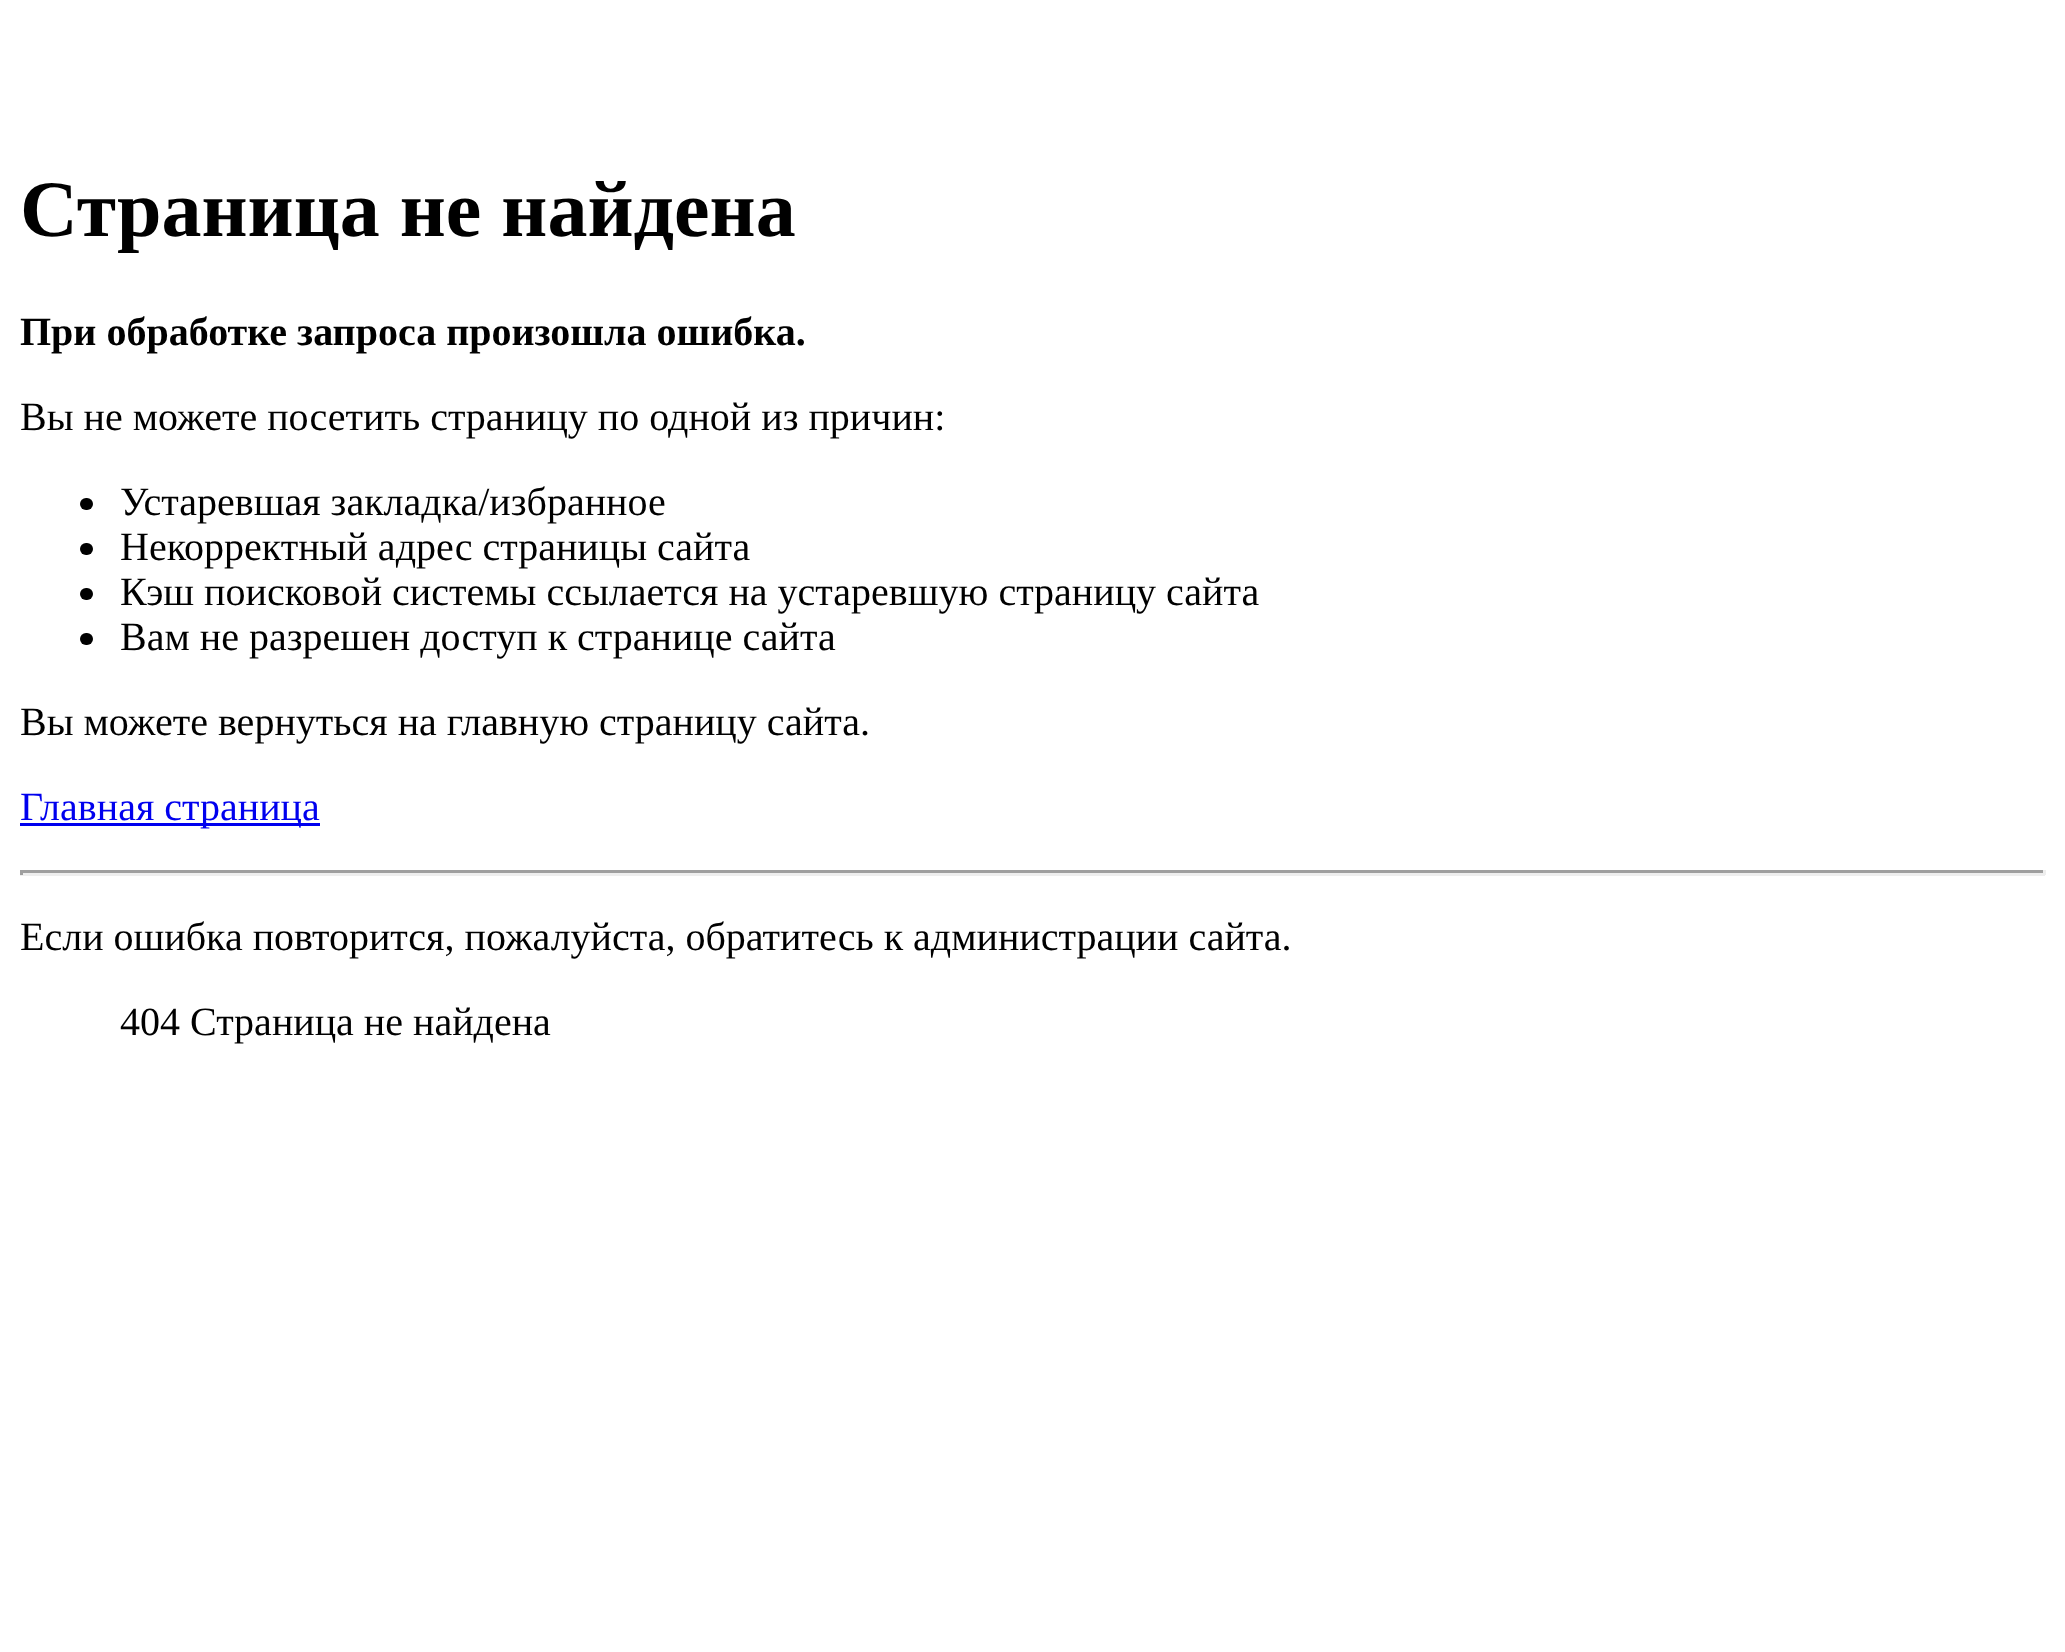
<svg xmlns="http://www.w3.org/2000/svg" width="2065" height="1652">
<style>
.a{font:bold 80px Liberation Serif;fill:#000}
.b{font:bold 40px Liberation Serif;fill:#000}
.c{font:40px Liberation Serif;fill:#000}
.d{font:40px Liberation Serif;fill:#00e}
</style>
<rect width="100%" height="100%" fill="#fff"/>
<rect fill="#000" x="80" y="498" width="13" height="12" rx="6"/>
<rect fill="#000" x="80" y="543" width="13" height="12" rx="6"/>
<rect fill="#000" x="80" y="588" width="13" height="12" rx="6"/>
<rect fill="#000" x="80" y="633" width="13" height="12" rx="6"/>
<path fill="#00e" d="M20 823h300v3H20z"/>
<path fill="#9f9f9f" d="M20 870h2025v3H20z"/>
<path fill="#eee" d="M2043 870h3v5H2043z"/>
<path fill="#eee" d="M20 873h2025v3H20z"/>
<path fill="#9f9f9f" d="M20 870h3v5H20z"/>
<text class="a" x="20" y="236">Страница не найдена</text>
<text class="b" x="20" y="345">При обработке запроса произошла ошибка.</text>
<text class="c" x="20" y="430">Вы не можете посетить страницу по одной из причин:</text>
<text class="c" x="120" y="515">Устаревшая закладка/избранное</text>
<text class="c" x="120" y="560">Некорректный адрес страницы сайта</text>
<text class="c" x="120" y="605">Кэш поисковой системы ссылается на устаревшую страницу сайта</text>
<text class="c" x="120" y="650">Вам не разрешен доступ к странице сайта</text>
<text class="c" x="20" y="735">Вы можете вернуться на главную страницу сайта.</text>
<text class="d" x="20" y="820">Главная страница</text>
<text class="c" x="20" y="950">Если ошибка повторится, пожалуйста, обратитесь к администрации сайта.</text>
<text class="c" x="120" y="1035">404 Страница не найдена</text>
</svg>
